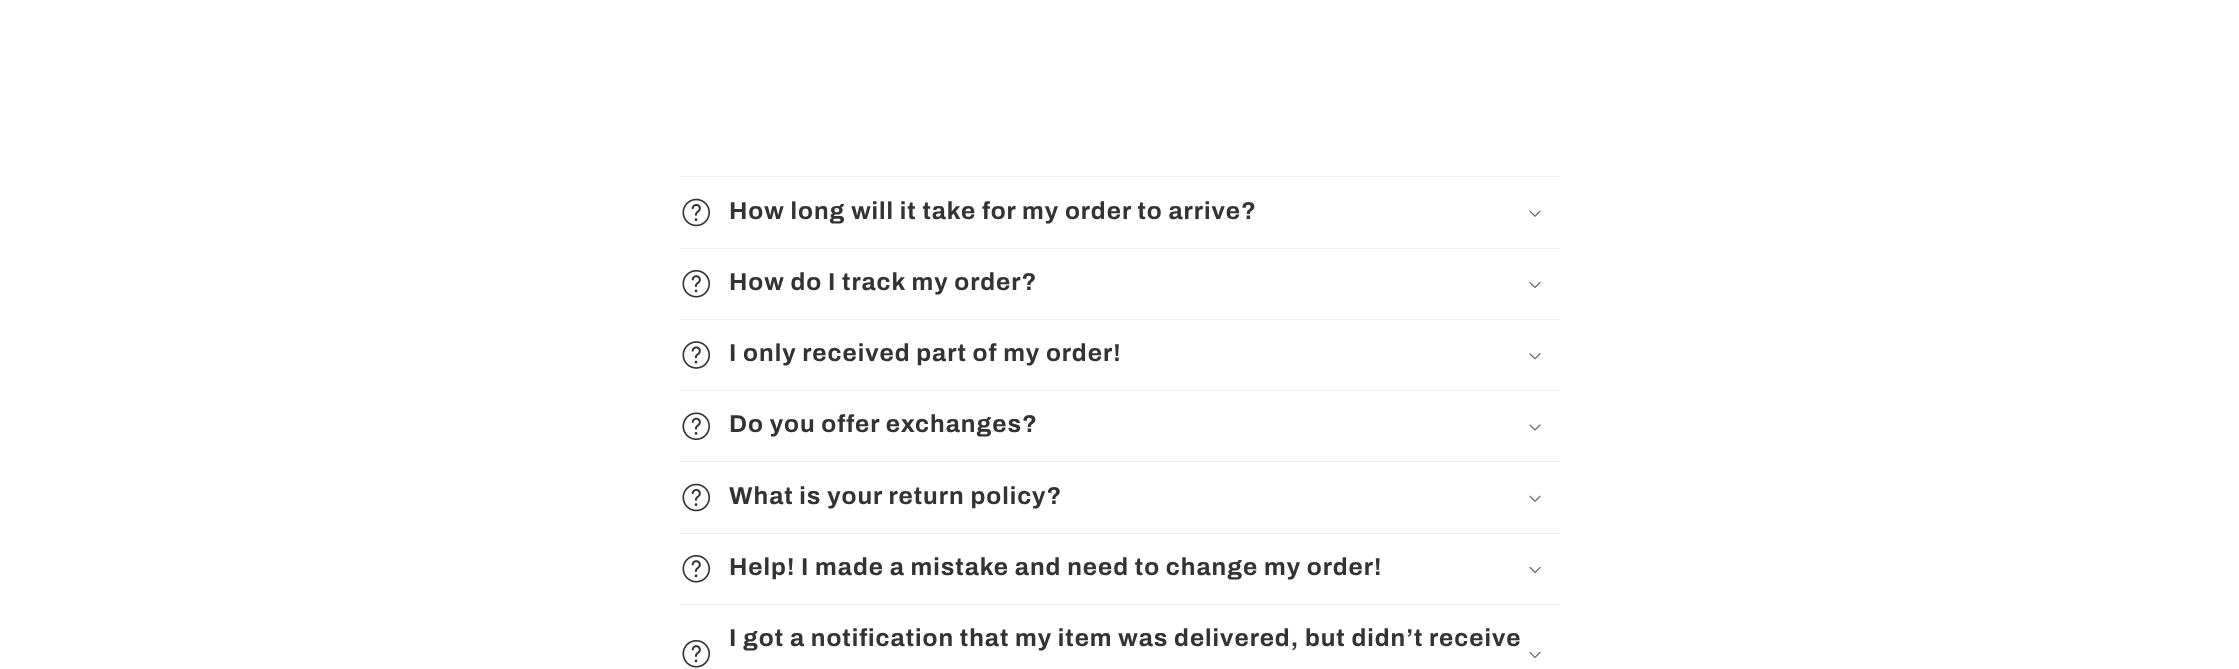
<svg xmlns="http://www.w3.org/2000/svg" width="2239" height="669">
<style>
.a{font:bold 24.4px Archivo;letter-spacing:0.98px;fill:#333}
</style>
<rect width="100%" height="100%" fill="#fff"/>
<path fill="#efefef" d="M680 176h880v1H680z"/>
<path fill="#efefef" d="M680 248h880v1H680z"/>
<image href="1.png" x="682" y="198" width="29" height="29"/>
<image href="2.png" x="1529" y="210" width="12" height="7"/>
<path fill="#efefef" d="M680 319h880v1H680z"/>
<image href="3.png" x="682" y="269" width="29" height="29"/>
<image href="4.png" x="1529" y="282" width="12" height="6"/>
<path fill="#efefef" d="M680 390h880v1H680z"/>
<image href="5.png" x="682" y="341" width="28" height="28"/>
<image href="6.png" x="1529" y="353" width="12" height="7"/>
<path fill="#efefef" d="M680 461h880v1H680z"/>
<image href="7.png" x="682" y="412" width="29" height="29"/>
<image href="8.png" x="1529" y="424" width="12" height="7"/>
<path fill="#efefef" d="M680 533h880v1H680z"/>
<image href="1.png" x="682" y="483" width="29" height="29"/>
<image href="2.png" x="1529" y="495" width="12" height="7"/>
<path fill="#efefef" d="M680 604h880v1H680z"/>
<image href="3.png" x="682" y="554" width="29" height="29"/>
<image href="4.png" x="1529" y="567" width="12" height="6"/>
<image href="3.png" x="682" y="639" width="29" height="29"/>
<image href="4.png" x="1529" y="652" width="12" height="6"/>
<text class="a" x="729" y="219">How long will it take for my order to arrive?</text>
<text class="a" x="729" y="290">How do I track my order?</text>
<text class="a" x="729" y="361">I only received part of my order!</text>
<text class="a" x="729" y="432">Do you offer exchanges?</text>
<text class="a" x="729" y="504">What is your return policy?</text>
<text class="a" x="729" y="575">Help! I made a mistake and need to change my order!</text>
<text class="a" x="729" y="646">I got a notification that my item was delivered, but didn’t receive</text>
</svg>
